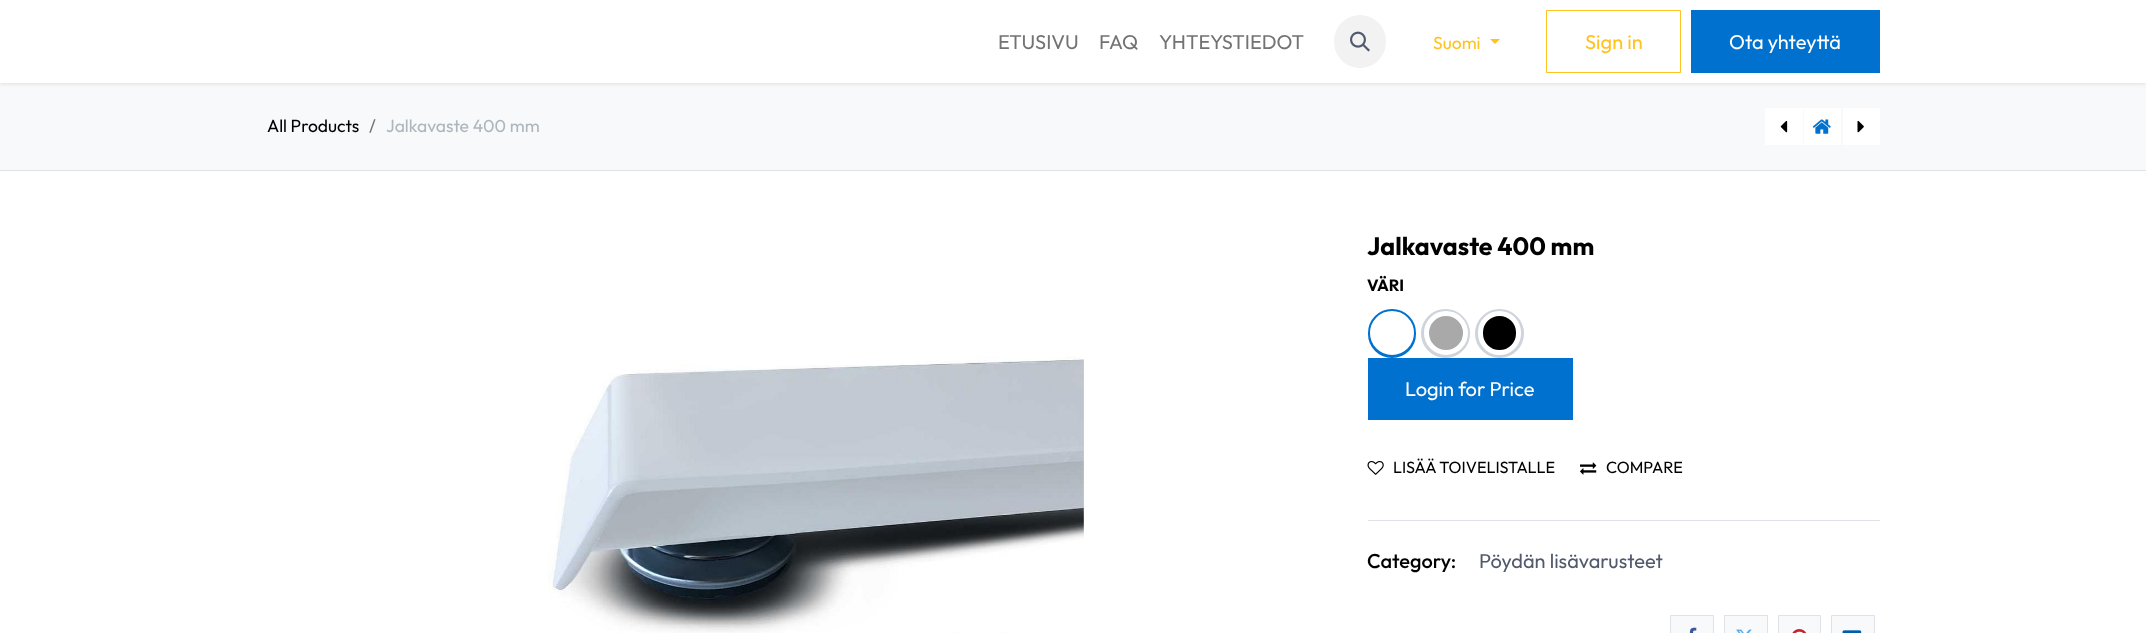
<svg xmlns="http://www.w3.org/2000/svg" width="2146" height="633">
<style>
.a{font:20px Outfit;fill:#737373}
.b{font:17.5px Outfit;fill:#ffc220}
.c{font:20px Outfit;fill:#ffc220}
.d{font:20px Outfit;fill:#fff}
.e{font:17.5px Outfit;fill:#000}
.f{font:17.5px Outfit;fill:#6c757d}
.g{font:17.5px Outfit;fill:#adb5bd}
.h{font:bold 25px Outfit;fill:#000}
.i{font:bold 16.25px Outfit;fill:#000}
.j{font:16.25px Outfit;fill:#000}
.k{font:500 20px Outfit;fill:#000}
.l{font:20px Outfit;fill:#51596c}
</style>
<rect width="100%" height="100%" fill="#fff"/>
<path fill="#f8f9fa" d="M0 83h2146v87H0z"/>
<path fill="#0000001a" filter="blur(2px)" d="M0 1h2146v83H0z"/>
<path fill="#fff" d="M0 0h2146v83H0z"/>
<rect fill="#f2f2f2" x="1334" y="15" width="52" height="53" rx="26"/>
<image href="1.png" x="1350" y="31" width="20" height="21"/>
<path fill="#ffc220" d="M1490 39h10l-5 5z"/>
<path fill="none" stroke="#ffc220" d="M1546.5 10.5h134v62H1546.5z"/>
<path fill="#0071ce" d="M1691 10h189v63H1691z"/>
<path fill="#dee2e6" d="M0 170h2146v1H0z"/>
<path fill="#fff" d="M1765 108h38v37H1765z"/>
<image href="2.png" x="1780" y="120" width="8" height="13"/>
<path fill="#fff" d="M1804 108h37v37H1804z"/>
<image href="3.png" x="1812" y="119" width="19" height="15"/>
<path fill="#fff" d="M1843 108h37v37H1843z"/>
<image href="4.png" x="1857" y="120" width="7" height="13"/>
<image href="5.png" x="548" y="356" width="536" height="277"/>
<rect fill="none" stroke="#0071ce" stroke-width="6" x="1371" y="312" width="42" height="43" rx="21"/>
<circle fill="none" stroke="#fff" stroke-width="5" cx="1392" cy="333" r="19.5"/>
<circle fill="#a9a9a9" stroke="#ced4da" stroke-width="6" cx="1445.5" cy="333.5" r="21.5"/>
<circle fill="none" stroke="#fff" stroke-width="5" cx="1446" cy="333" r="19.5"/>
<circle fill="#000" stroke="#ced4da" stroke-width="6" cx="1499.5" cy="333.5" r="21.5"/>
<rect fill="none" stroke="#fff" stroke-width="5" x="1480.5" y="313.5" width="38" height="39" rx="19"/>
<path fill="#0071ce" d="M1368 358h205v62H1368z"/>
<image href="6.png" x="1367" y="461" width="17" height="14"/>
<image href="7.png" x="1580" y="462" width="17" height="13"/>
<path fill="#dee2e6" d="M1368 520h512v1H1368z"/>
<path fill="#f8f9fa" stroke="#dee2e6" d="M1670.5 615.5h43v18H1670.5z"/>
<image href="8.png" x="1689" y="627" width="8" height="6"/>
<path fill="#f8f9fa" stroke="#dee2e6" d="M1724.5 615.5h43v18H1724.5z"/>
<image href="9.png" x="1736" y="629" width="16" height="4"/>
<path fill="#f8f9fa" stroke="#dee2e6" d="M1778.5 615.5h42v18H1778.5z"/>
<image href="10.png" x="1792" y="629" width="15" height="4"/>
<path fill="#f8f9fa" stroke="#dee2e6" d="M1831.5 615.5h43v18H1831.5z"/>
<image href="11.png" x="1842" y="630" width="20" height="3"/>
<text class="a" x="998" y="49">ETUSIVU</text>
<text class="a" x="1099" y="49">FAQ</text>
<text class="a" x="1159" y="49">YHTEYSTIEDOT</text>
<text class="b" x="1433" y="49">Suomi</text>
<text class="c" x="1585" y="49">Sign in</text>
<text class="d" x="1729" y="49">Ota yhteyttä</text>
<text class="e" x="267" y="132">All Products</text>
<text class="f" x="369" y="132">/</text>
<text class="g" x="386" y="132">Jalkavaste 400 mm</text>
<text class="h" x="1367" y="255">Jalkavaste 400 mm</text>
<text class="i" x="1367" y="291">VÄRI</text>
<text class="d" x="1405" y="396">Login for Price</text>
<text class="j" x="1393" y="473">LISÄÄ TOIVELISTALLE</text>
<text class="j" x="1606" y="473">COMPARE</text>
<text class="k" x="1367" y="568">Category:</text>
<text class="l" x="1479" y="568">Pöydän lisävarusteet</text>
</svg>
